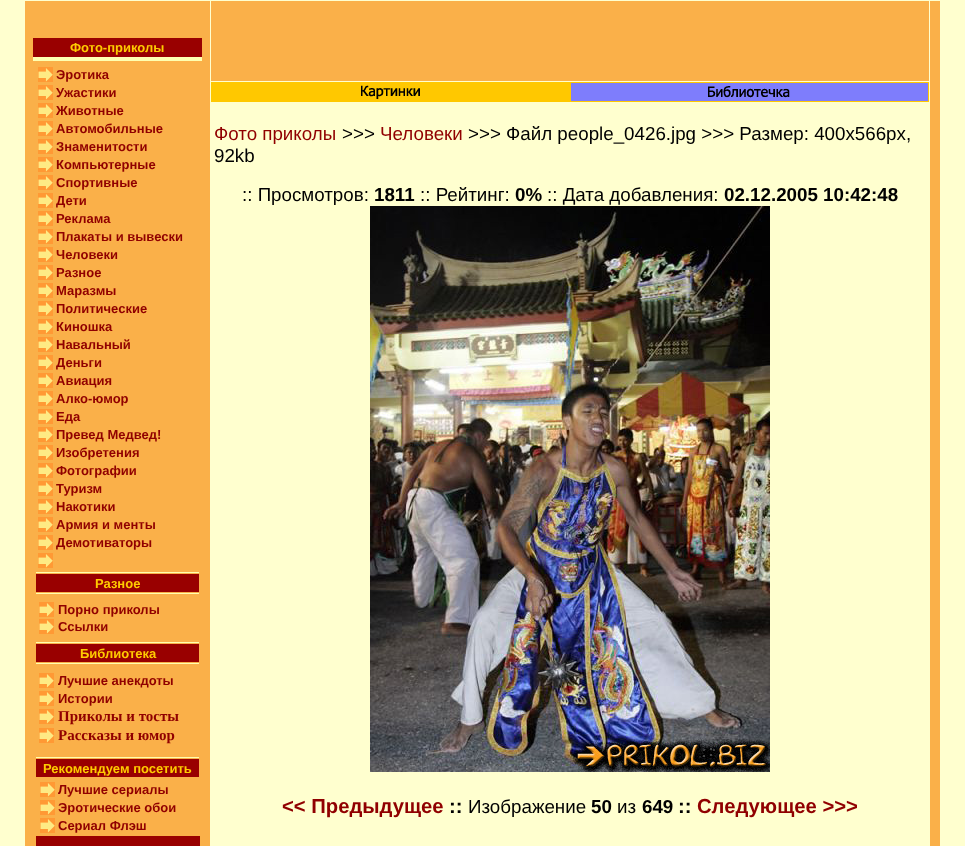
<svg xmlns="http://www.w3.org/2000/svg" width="965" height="846">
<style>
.a{font:bold 13px Liberation Sans;fill:#fc0}
.b{font:bold 13px Liberation Sans;fill:#900000}
.c{font:bold 15px Liberation Serif;fill:#900000}
.d{font:18.75px Liberation Sans;fill:#900000}
.e{font:18.75px Liberation Sans;fill:#000}
.f{font:bold 18.75px Liberation Sans;fill:#000}
.g{font:bold 20.25px Liberation Sans;fill:#900000}
.h{font:bold 20.25px Liberation Sans;fill:#000}
</style>
<rect width="100%" height="100%" fill="#ffffcf"/>
<path fill="#fab049" d="M25 1h185v845H25z"/>
<path fill="#900" d="M33 38h169v19H33z"/>
<path fill="#ffffb0" d="M33 57h169v4H33z"/>
<image href="1.png" x="38" y="67" width="15" height="15"/>
<image href="1.png" x="38" y="85" width="15" height="15"/>
<image href="1.png" x="38" y="103" width="15" height="15"/>
<image href="1.png" x="38" y="121" width="15" height="15"/>
<image href="1.png" x="38" y="139" width="15" height="15"/>
<image href="1.png" x="38" y="157" width="15" height="15"/>
<image href="1.png" x="38" y="175" width="15" height="15"/>
<image href="1.png" x="38" y="193" width="15" height="15"/>
<image href="1.png" x="38" y="211" width="15" height="15"/>
<image href="1.png" x="38" y="229" width="15" height="15"/>
<image href="1.png" x="38" y="247" width="15" height="15"/>
<image href="1.png" x="38" y="265" width="15" height="15"/>
<image href="1.png" x="38" y="283" width="15" height="15"/>
<image href="1.png" x="38" y="301" width="15" height="15"/>
<image href="1.png" x="38" y="319" width="15" height="15"/>
<image href="1.png" x="38" y="337" width="15" height="15"/>
<image href="1.png" x="38" y="355" width="15" height="15"/>
<image href="1.png" x="38" y="373" width="15" height="15"/>
<image href="1.png" x="38" y="391" width="15" height="15"/>
<image href="1.png" x="38" y="409" width="15" height="15"/>
<image href="1.png" x="38" y="427" width="15" height="15"/>
<image href="1.png" x="38" y="445" width="15" height="15"/>
<image href="1.png" x="38" y="463" width="15" height="15"/>
<image href="1.png" x="38" y="481" width="15" height="15"/>
<image href="1.png" x="38" y="499" width="15" height="15"/>
<image href="1.png" x="38" y="517" width="15" height="15"/>
<image href="1.png" x="38" y="535" width="15" height="15"/>
<image href="1.png" x="38" y="553" width="15" height="15"/>
<path fill="#ffffb0" d="M36 572h163v1H36z"/>
<path fill="#900" d="M36 574h163v18H36z"/>
<path fill="#ffffb0" d="M36 593h163v1H36z"/>
<image href="1.png" x="39" y="602" width="15" height="15"/>
<image href="1.png" x="39" y="619" width="15" height="15"/>
<path fill="#ffffb0" d="M36 642h163v1H36z"/>
<path fill="#900" d="M36 644h163v18H36z"/>
<path fill="#ffffb0" d="M36 663h163v1H36z"/>
<image href="1.png" x="39" y="673" width="15" height="15"/>
<image href="1.png" x="39" y="691" width="15" height="15"/>
<image href="1.png" x="39" y="709" width="15" height="15"/>
<image href="1.png" x="39" y="728" width="15" height="15"/>
<path fill="#ffffb0" d="M36 757h163v1H36z"/>
<path fill="#900" d="M36 759h163v18H36z"/>
<image href="1.png" x="40" y="782" width="15" height="15"/>
<image href="1.png" x="40" y="800" width="15" height="15"/>
<image href="1.png" x="40" y="818" width="15" height="15"/>
<path fill="#900" d="M36 836h164v10H36z"/>
<path fill="#fab049" d="M211 1h718v80H211z"/>
<path fill="#fab049" d="M930 1h10v845H930z"/>
<path fill="#ffc800" d="M211 82h718v20H211z"/>
<image href="2.png" x="361" y="85" width="59" height="14"/>
<path fill="#7e7dfc" d="M571 83h357v18H571z"/>
<image href="3.png" x="708" y="86" width="82" height="12"/>
<image href="4.png" x="370" y="206" width="400" height="566"/>
<text class="a" x="70" y="52">Фото-приколы</text>
<text class="b" x="56" y="79">Эротика</text>
<text class="b" x="56" y="97">Ужастики</text>
<text class="b" x="56" y="115">Животные</text>
<text class="b" x="56" y="133">Автомобильные</text>
<text class="b" x="56" y="151">Знаменитости</text>
<text class="b" x="56" y="169">Компьютерные</text>
<text class="b" x="56" y="187">Спортивные</text>
<text class="b" x="56" y="205">Дети</text>
<text class="b" x="56" y="223">Реклама</text>
<text class="b" x="56" y="241">Плакаты и вывески</text>
<text class="b" x="56" y="259">Человеки</text>
<text class="b" x="56" y="277">Разное</text>
<text class="b" x="56" y="295">Маразмы</text>
<text class="b" x="56" y="313">Политические</text>
<text class="b" x="56" y="331">Киношка</text>
<text class="b" x="56" y="349">Навальный</text>
<text class="b" x="56" y="367">Деньги</text>
<text class="b" x="56" y="385">Авиация</text>
<text class="b" x="56" y="403">Алко-юмор</text>
<text class="b" x="56" y="421">Еда</text>
<text class="b" x="56" y="439">Превед Медвед!</text>
<text class="b" x="56" y="457">Изобретения</text>
<text class="b" x="56" y="475">Фотографии</text>
<text class="b" x="56" y="493">Туризм</text>
<text class="b" x="56" y="511">Накотики</text>
<text class="b" x="56" y="529">Армия и менты</text>
<text class="b" x="56" y="547">Демотиваторы</text>
<text class="a" x="95" y="588">Разное</text>
<text class="b" x="58" y="614">Порно приколы</text>
<text class="b" x="58" y="631">Ссылки</text>
<text class="a" x="80" y="658">Библиотека</text>
<text class="b" x="58" y="685">Лучшие анекдоты</text>
<text class="b" x="58" y="703">Истории</text>
<text class="c" x="58" y="721">Приколы и тосты</text>
<text class="c" x="58" y="740">Рассказы и юмор</text>
<text class="a" x="43" y="773">Рекомендуем посетить</text>
<text class="b" x="58" y="794">Лучшие сериалы</text>
<text class="b" x="58" y="812">Эротические обои</text>
<text class="b" x="58" y="830">Сериал Флэш</text>
<text class="d" x="214" y="140">Фото приколы</text>
<text class="e" x="342" y="140">&gt;&gt;&gt;</text>
<text class="d" x="380" y="140">Человеки</text>
<text class="e" x="468" y="140">&gt;&gt;&gt; Файл people_0426.jpg &gt;&gt;&gt; Размер: 400x566px,</text>
<text class="e" x="214" y="162">92kb</text>
<text class="e" x="242" y="201">:: Просмотров:</text>
<text class="f" x="374" y="201">1811</text>
<text class="e" x="420" y="201">:: Рейтинг:</text>
<text class="f" x="515" y="201">0%</text>
<text class="e" x="547" y="201">:: Дата добавления:</text>
<text class="f" x="724" y="201">02.12.2005 10:42:48</text>
<text class="g" x="282" y="813">&lt;&lt; Предыдущее</text>
<text class="h" x="449" y="813">::</text>
<text class="e" x="468" y="813">Изображение</text>
<text class="f" x="591" y="813">50</text>
<text class="e" x="617" y="813">из</text>
<text class="f" x="642" y="813">649</text>
<text class="h" x="678" y="813">::</text>
<text class="g" x="697" y="813">Следующее &gt;&gt;&gt;</text>
</svg>
